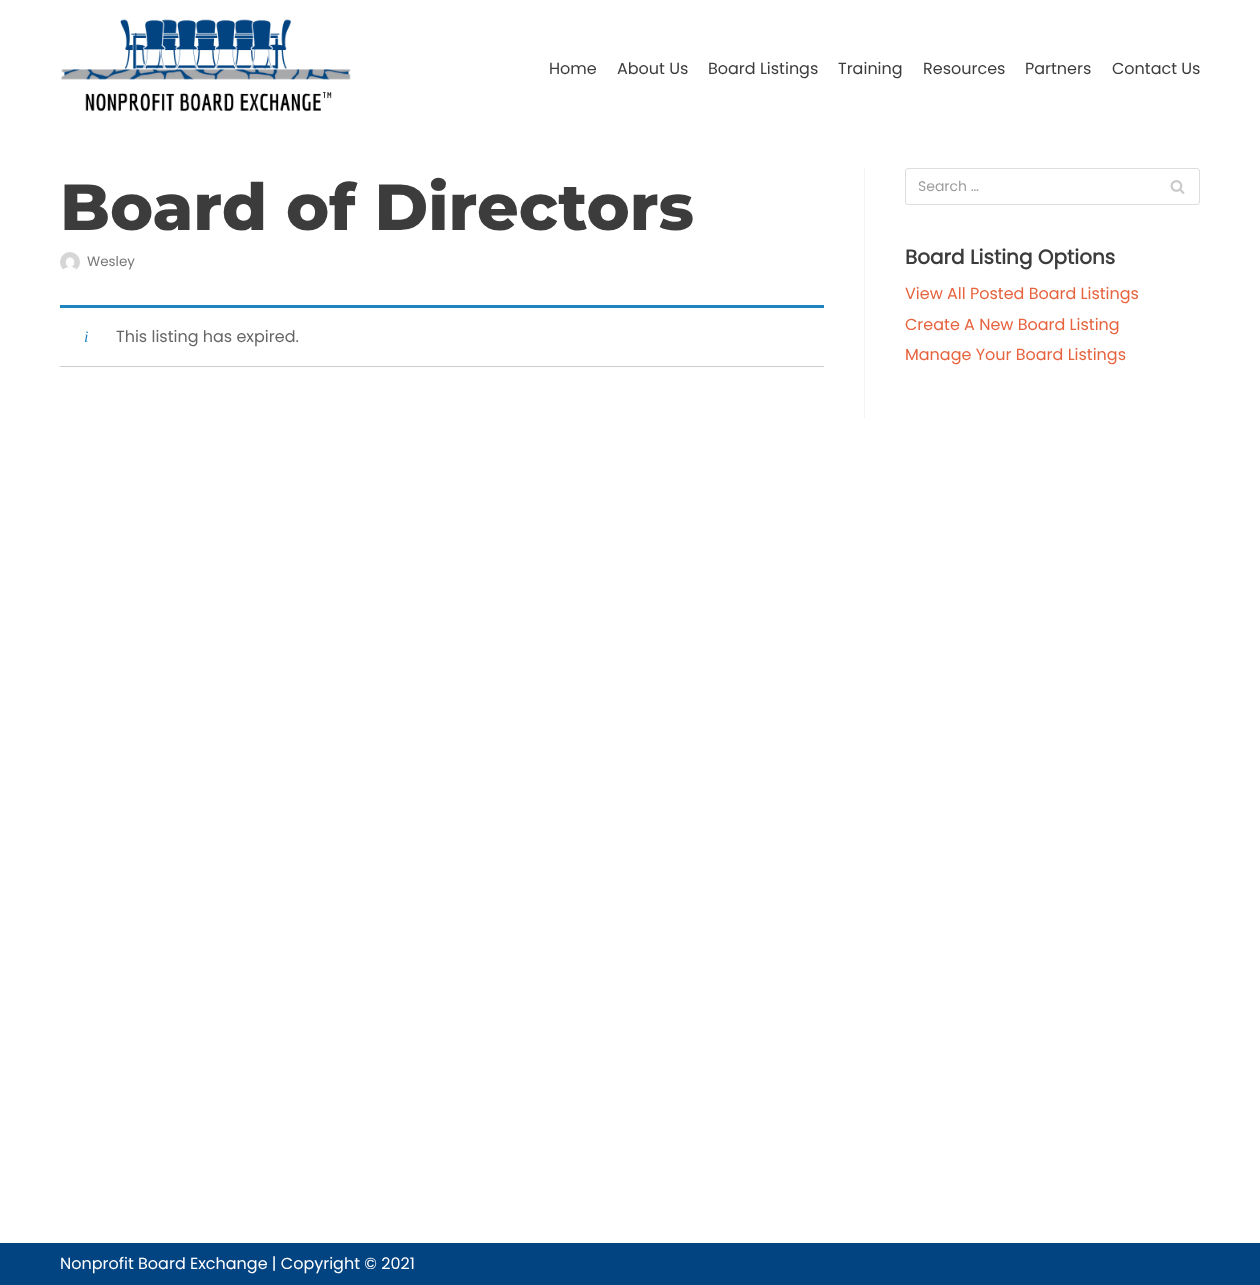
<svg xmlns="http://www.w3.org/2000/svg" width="1260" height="1285">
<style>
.a{font:16px Poppins;fill:#3c3c3c}
.b{font:800 65px Montserrat;fill:#3c3c3c}
.c{font:13.5px Poppins;fill:#777}
.d{font:italic 16px Liberation Serif;fill:#1e85be}
.e{font:16px Poppins;fill:#666}
.f{font:14px Poppins;fill:#9e9e9e}
.g{font:bold 20px Poppins;fill:#3c3c3c}
.h{font:16px Poppins;fill:#e6633e}
.i{font:16px Poppins;fill:#fff}
</style>
<defs>
<clipPath id="clip1"><path d="M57 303h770v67h-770zm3 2h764v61h-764z" clip-rule="evenodd"/></clipPath>
</defs>
<rect width="100%" height="100%" fill="#fff"/>
<image href="1.png" x="61" y="19" width="290" height="93"/>
<image href="2.png" x="60" y="252" width="20" height="18"/>
<g clip-path="url(#clip1)">
<path fill="#00000033" filter="blur(0.5px)" d="M60 306h764v61H60z"/>
</g>
<path fill="#1e85be" d="M60 305h764v3H60z"/>
<path fill="#f4f4f4" d="M864 168h1v250H864z"/>
<rect fill="none" stroke="#ddd" x="905.5" y="168.5" width="294" height="36" rx="2.5"/>
<image href="3.png" x="1170" y="180" width="15" height="14"/>
<path fill="#024381" d="M0 1243h1260v42H0z"/>
<text class="a" x="549" y="74">Home</text>
<text class="a" x="617" y="74">About Us</text>
<text class="a" x="708" y="74">Board Listings</text>
<text class="a" x="838" y="74">Training</text>
<text class="a" x="923" y="74">Resources</text>
<text class="a" x="1025" y="74">Partners</text>
<text class="a" x="1112" y="74">Contact Us</text>
<text class="b" x="60" y="230">Board of Directors</text>
<text class="c" x="87" y="266">Wesley</text>
<text class="d" x="84" y="342">i</text>
<text class="e" x="116" y="342">This listing has expired.</text>
<text class="f" x="918" y="191">Search …</text>
<text class="g" x="905" y="264">Board Listing Options</text>
<text class="h" x="905" y="299">View All Posted Board Listings</text>
<text class="h" x="905" y="330">Create A New Board Listing</text>
<text class="h" x="905" y="360">Manage Your Board Listings</text>
<text class="i" x="60" y="1269">Nonprofit Board Exchange | Copyright © 2021</text>
</svg>
